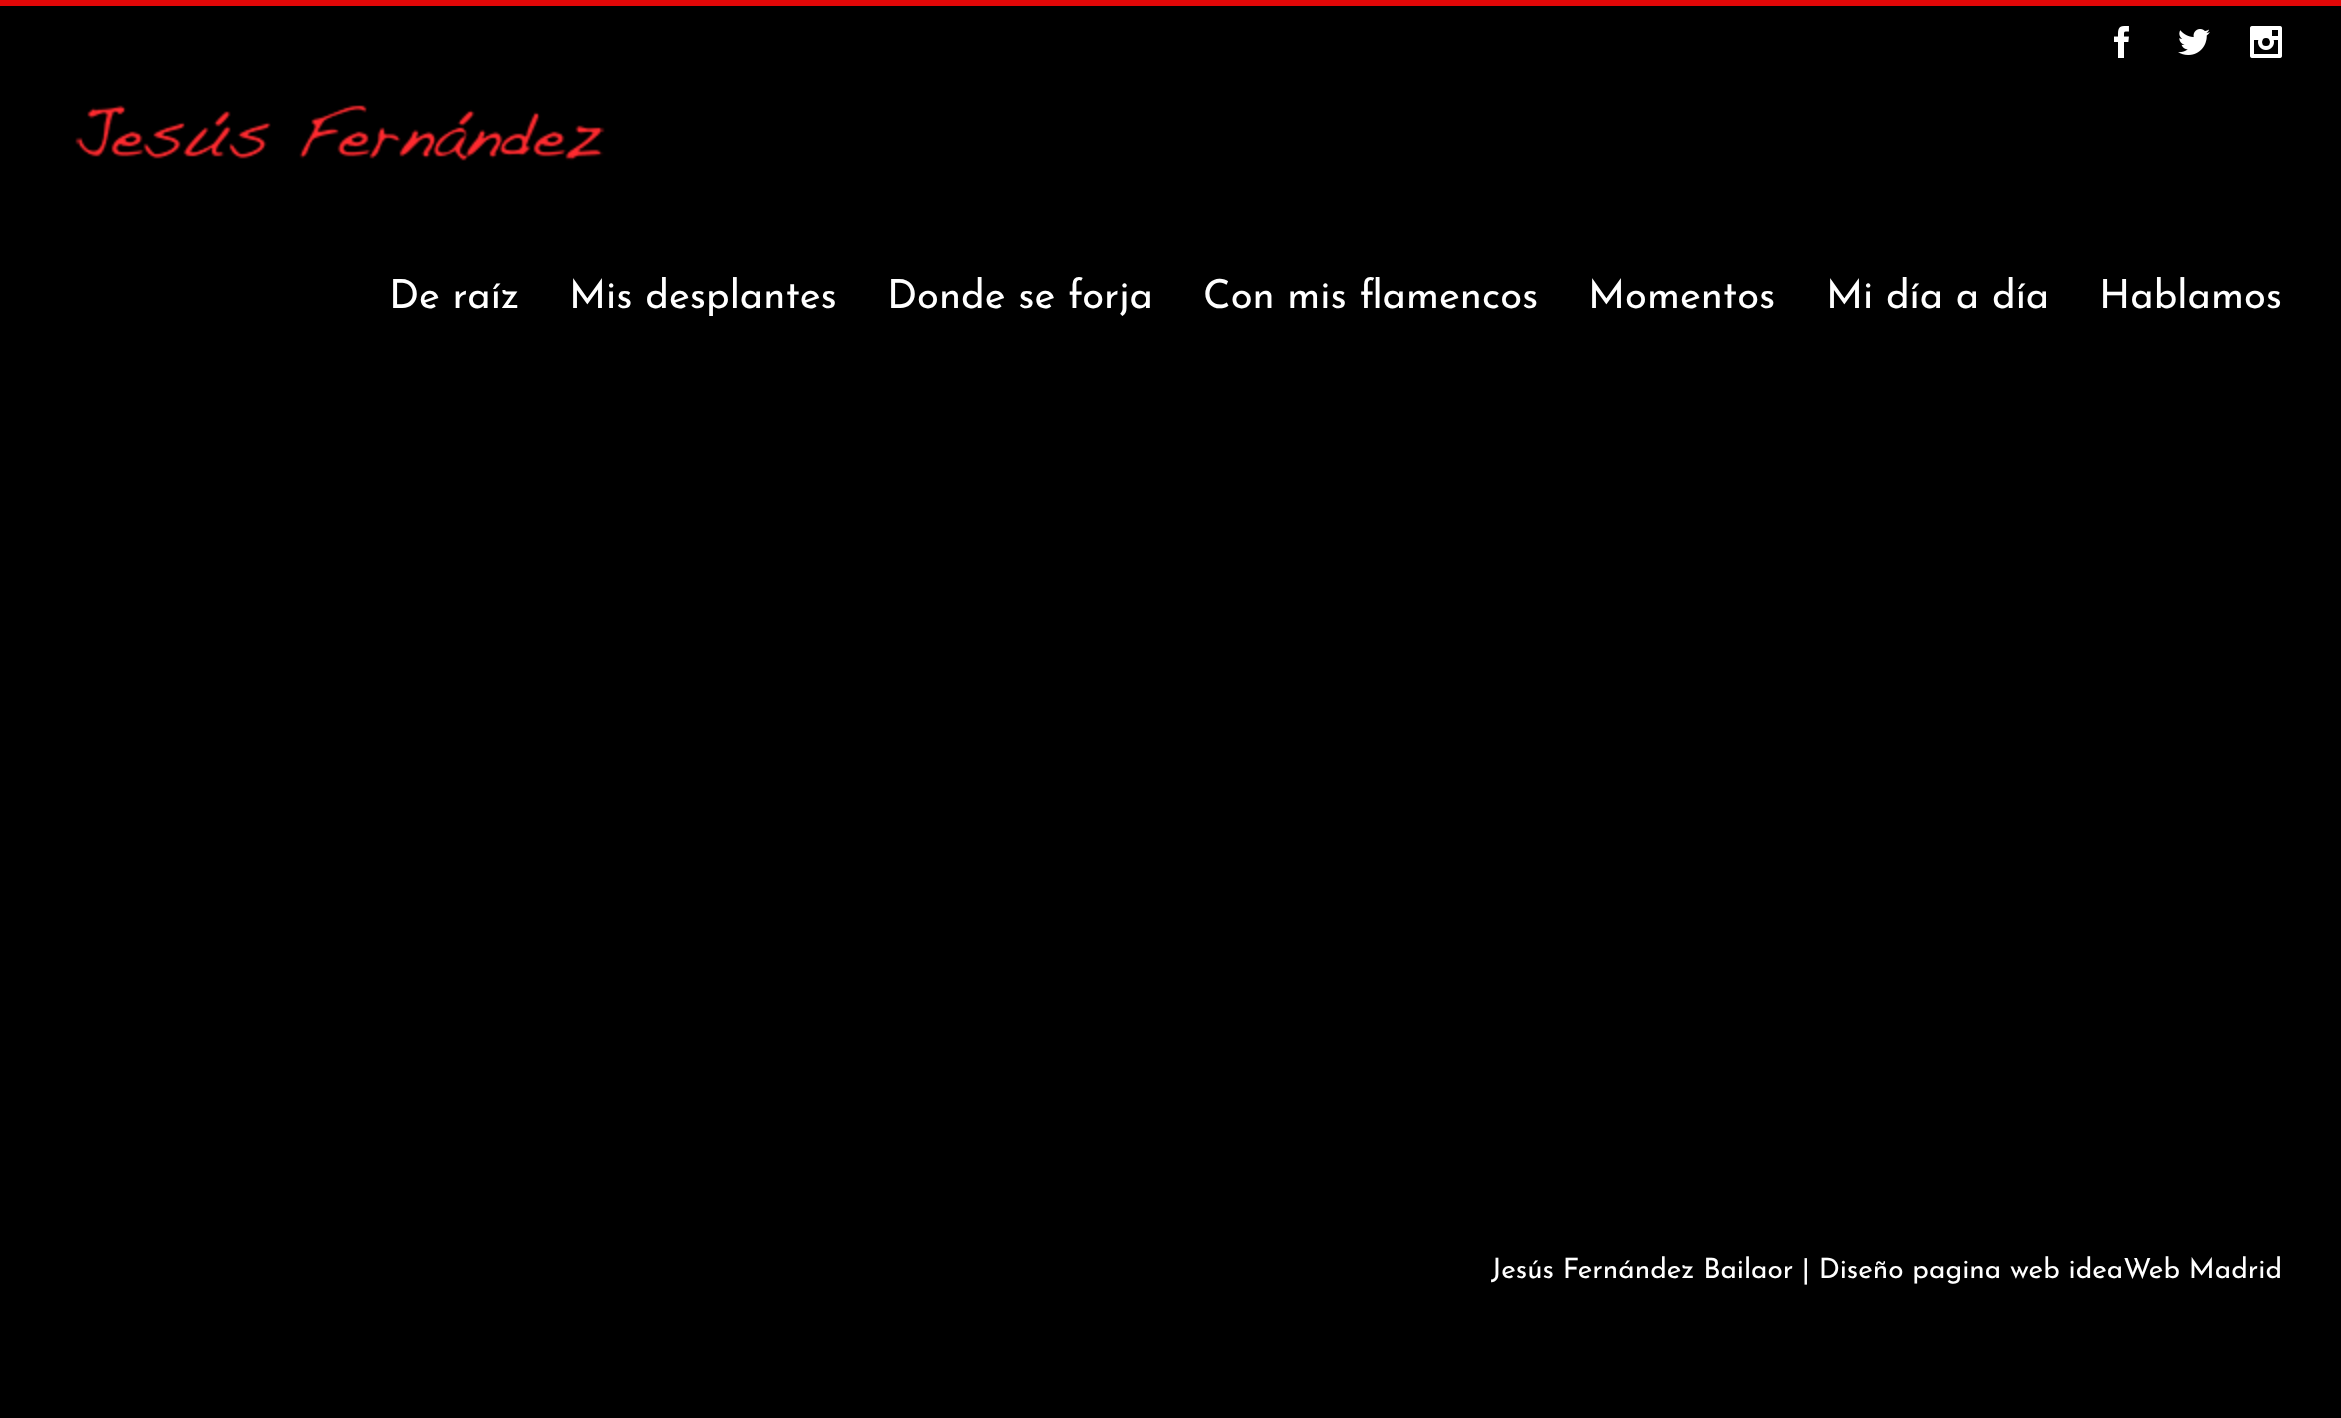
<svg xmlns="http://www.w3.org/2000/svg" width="2341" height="1418">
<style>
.a{font:100 40px Josefin Sans;fill:#fff}
.b{font:100 28px Josefin Sans;fill:#fff}
</style>
<rect width="100%" height="100%" fill="#000"/>
<path fill="#e10707" d="M0 0h2341v6H0z"/>
<image href="1.png" x="2114" y="26" width="15" height="32"/>
<image href="2.png" x="2178" y="29" width="32" height="26"/>
<image href="3.png" x="2250" y="26" width="32" height="32"/>
<image href="4.png" x="75" y="105" width="530" height="56"/>
<text class="a" x="389" y="308">De raíz</text>
<text class="a" x="569" y="308">Mis desplantes</text>
<text class="a" x="887" y="308">Donde se forja</text>
<text class="a" x="1203" y="308">Con mis flamencos</text>
<text class="a" x="1588" y="308">Momentos</text>
<text class="a" x="1826" y="308">Mi día a día</text>
<text class="a" x="2099" y="308">Hablamos</text>
<text class="b" x="1491" y="1278">Jesús Fernández Bailaor | Diseño pagina web ideaWeb Madrid</text>
</svg>
